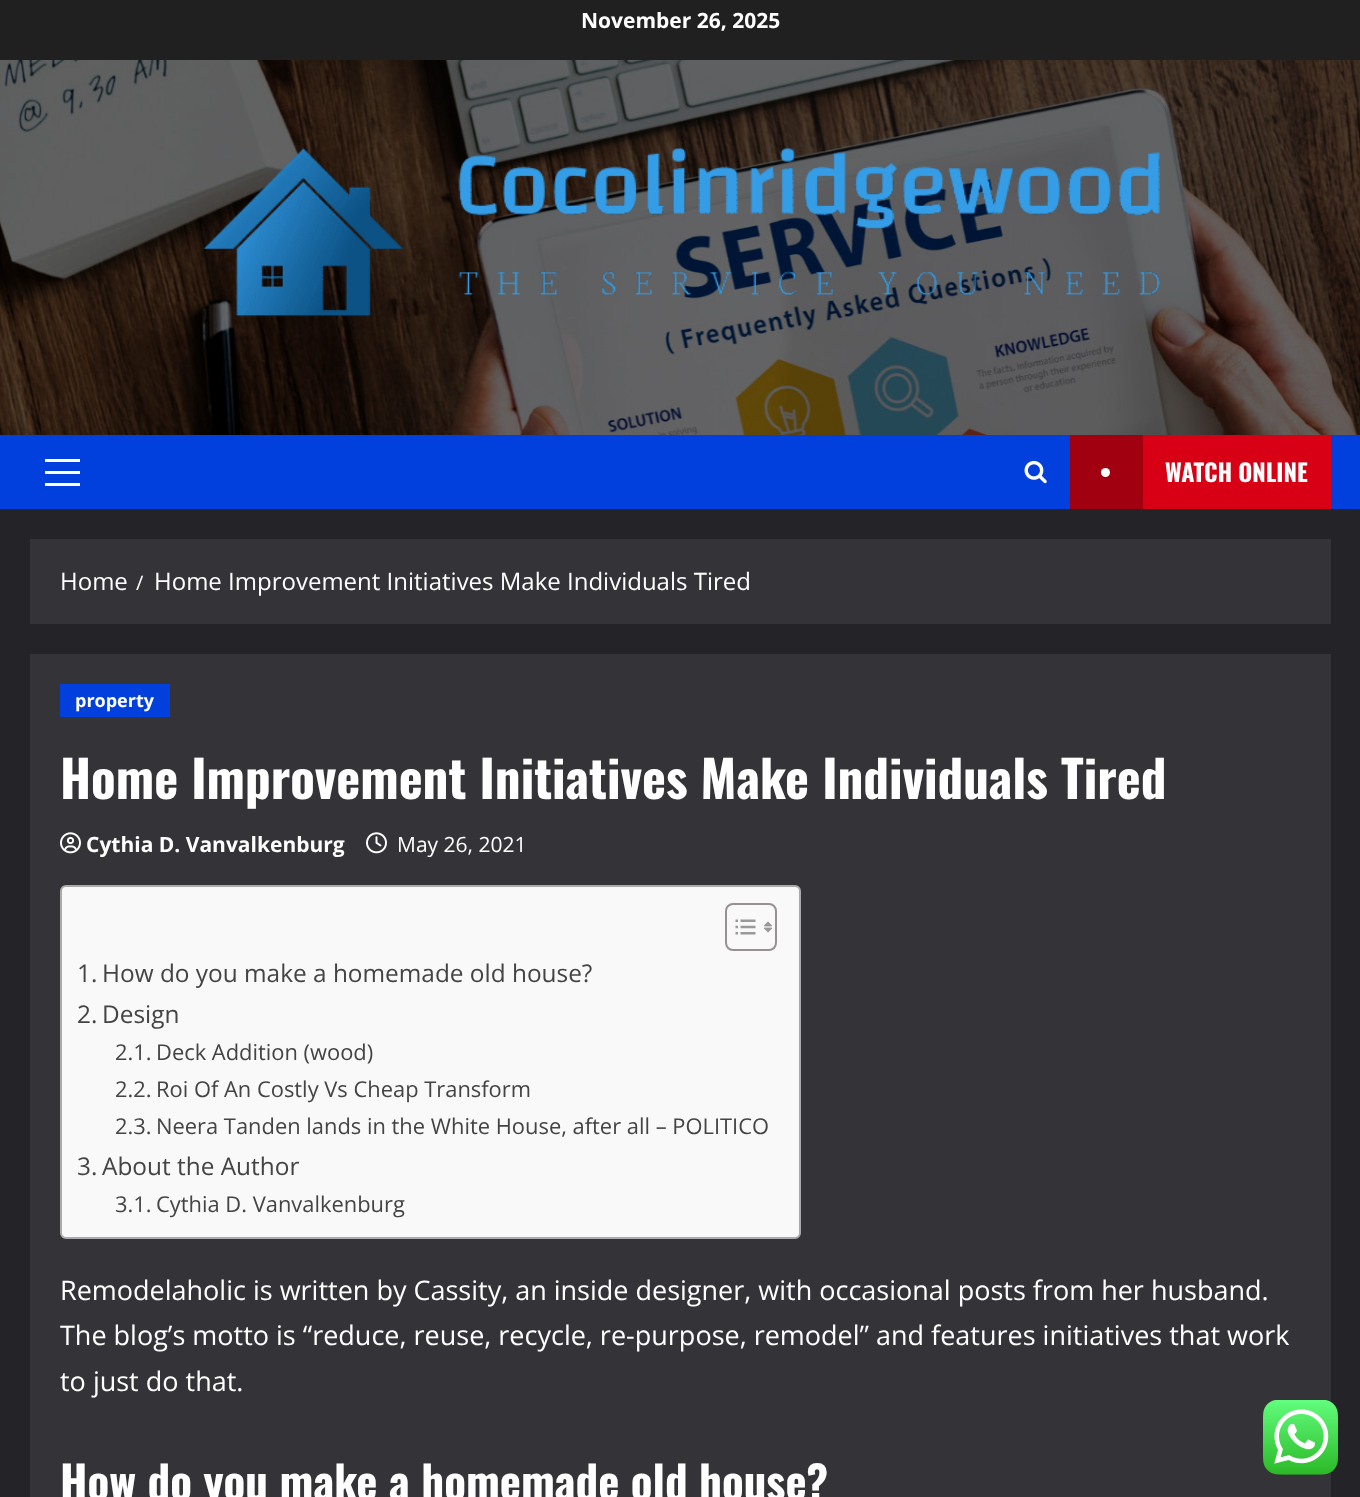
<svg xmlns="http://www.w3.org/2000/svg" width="1360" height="1497">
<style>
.a{font:bold 21px Open Sans;fill:#fff}
.b{font:bold 24px Oswald;fill:#fff}
.c{font:24px Open Sans;fill:#fff}
.d{font:20px Open Sans;fill:#fff}
.e{font:bold 18px Open Sans;fill:#fff}
.f{font:bold 51px Oswald;fill:#fff}
.g{font:21px Open Sans;fill:#fff}
.h{font:24.4px Open Sans;fill:#444}
.i{font:21.9px Open Sans;fill:#444}
.j{font:27px Open Sans;fill:#fff}
.k{font:bold 45px Oswald;fill:#fff}
</style>
<rect width="100%" height="100%" fill="#242428"/>
<path fill="#202020" d="M0 0h1360v60H0z"/>
<image href="1.png" x="0" y="60" width="1360" height="375"/>
<image href="2.png" x="203" y="148" width="957" height="169"/>
<path fill="#0140dd" d="M0 435h1360v74H0z"/>
<path fill="#fff" d="M45 471h35v3H45z"/>
<path fill="#fff" d="M45 459h35v3H45z"/>
<path fill="#fff" d="M45 483h35v3H45z"/>
<image href="3.png" x="1024" y="460" width="23" height="24"/>
<path fill="#d70015" d="M1143 435h188v74H1143z"/>
<path fill="#a10010" d="M1070 435h73v74H1070z"/>
<circle fill="#fff" cx="1105.5" cy="472.5" r="4.5"/>
<path fill="#343438" d="M30 539h1301v85H30z"/>
<path fill="#343438" d="M30 654h1301v843H30z"/>
<path fill="#0140dd" d="M60 684h110v33H60z"/>
<image href="4.png" x="60" y="832" width="21" height="22"/>
<image href="5.png" x="366" y="832" width="21" height="22"/>
<rect fill="#f9f9f9" stroke="#aaa" stroke-width="2" x="61" y="886" width="739" height="352" rx="5"/>
<rect fill="none" stroke="#999191" stroke-width="2" x="726" y="904" width="50" height="46" rx="7"/>
<image href="6.png" x="735" y="919" width="21" height="16"/>
<image href="7.png" x="764" y="921" width="8" height="12"/>
<image href="8.png" x="1263" y="1400" width="75" height="75"/>
<text class="a" x="581" y="28">November 26, 2025</text>
<text class="b" x="1165" y="482">WATCH ONLINE</text>
<text class="c" x="60" y="590">Home</text>
<text class="d" x="136" y="590">/</text>
<text class="c" x="154" y="590">Home Improvement Initiatives Make Individuals Tired</text>
<text class="e" x="75" y="707">property</text>
<text class="f" x="60" y="799">Home Improvement Initiatives Make Individuals Tired</text>
<text class="a" x="86" y="852">Cythia D. Vanvalkenburg</text>
<text class="g" x="397" y="852">May 26, 2021</text>
<text class="h" x="77" y="982">1.</text>
<text class="h" x="102" y="982">How do you make a homemade old house?</text>
<text class="h" x="77" y="1023">2.</text>
<text class="h" x="102" y="1023">Design</text>
<text class="i" x="115" y="1060">2.1.</text>
<text class="i" x="156" y="1060">Deck Addition (wood)</text>
<text class="i" x="115" y="1097">2.2.</text>
<text class="i" x="156" y="1097">Roi Of An Costly Vs Cheap Transform</text>
<text class="i" x="115" y="1134">2.3.</text>
<text class="i" x="156" y="1134">Neera Tanden lands in the White House, after all – POLITICO</text>
<text class="h" x="77" y="1175">3.</text>
<text class="h" x="102" y="1175">About the Author</text>
<text class="i" x="115" y="1212">3.1.</text>
<text class="i" x="156" y="1212">Cythia D. Vanvalkenburg</text>
<text class="j" x="60" y="1300">Remodelaholic is written by Cassity, an inside designer, with occasional posts from her husband.</text>
<text class="j" x="60" y="1345">The blog’s motto is “reduce, reuse, recycle, re-purpose, remodel” and features initiatives that work</text>
<text class="j" x="60" y="1391">to just do that.</text>
<text class="k" x="60" y="1500">How do you make a homemade old house?</text>
</svg>
